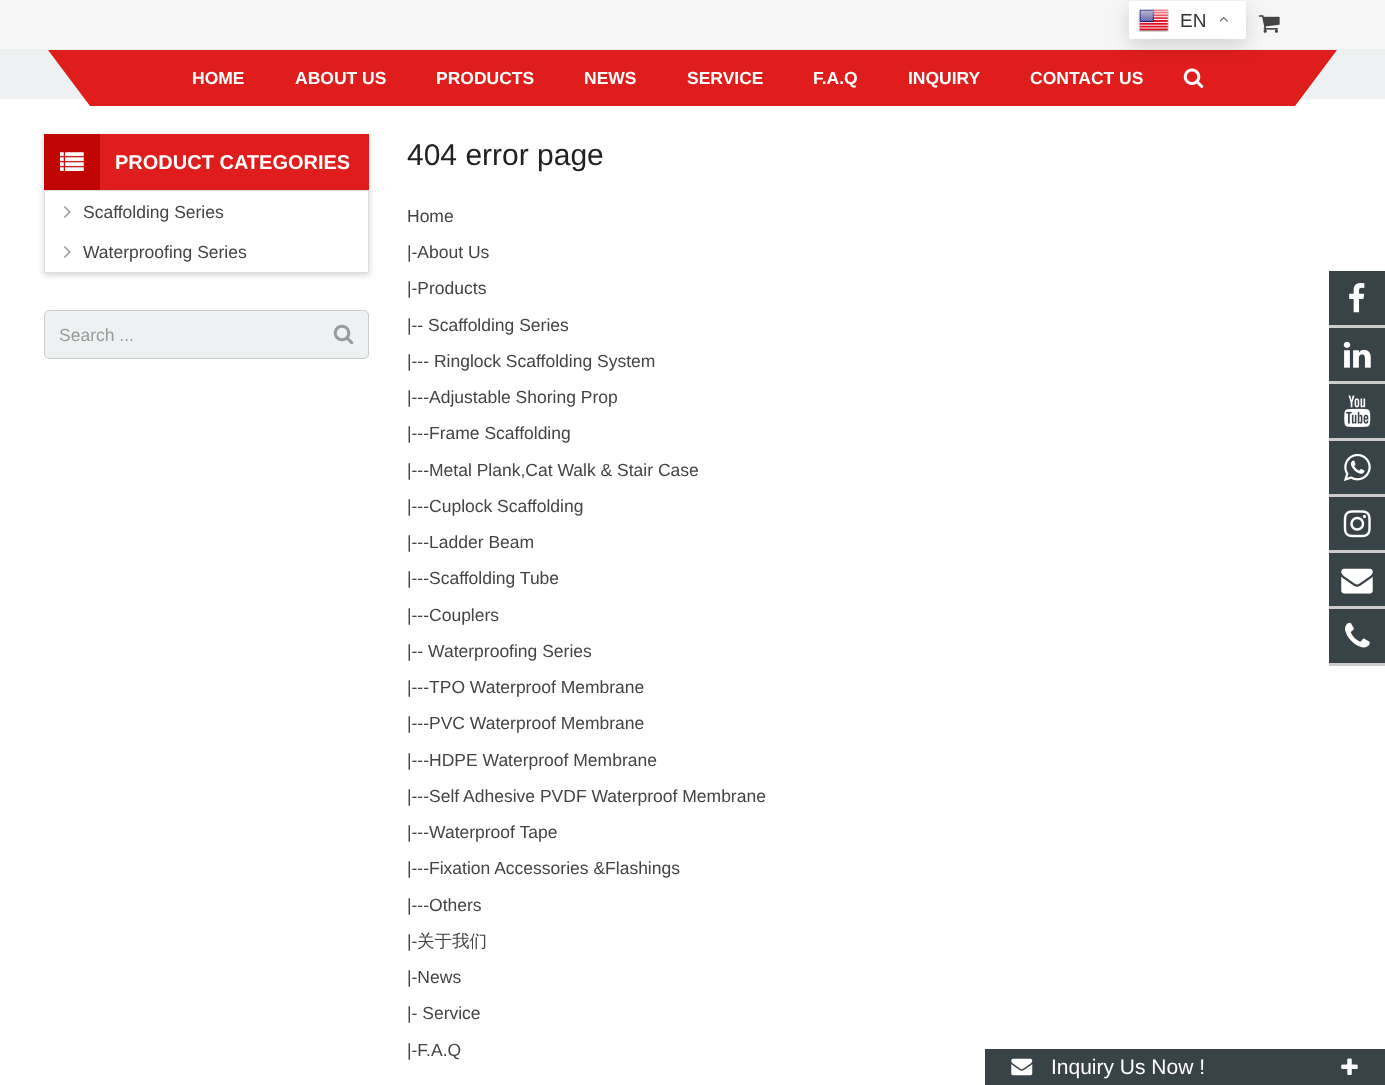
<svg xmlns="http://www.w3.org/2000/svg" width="1385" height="1085">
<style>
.a{font:19px Liberation Sans;fill:#333}
.b{font:21px Liberation Sans;fill:#fff}
.c{font:bold 17.5px Liberation Sans;fill:#fff}
.d{font:bold 20px Liberation Sans;fill:#fff}
.e{font:17.5px Liberation Sans;fill:#444}
.f{font:17.5px Liberation Sans;fill:#999b9b}
.g{font:30px Liberation Sans;fill:#222}
.h{font:500 17.5px WenQuanYi Zen Hei;fill:#444}
</style>
<defs>
<clipPath id="clip1"><path d="M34 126h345v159h-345zm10 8h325v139h-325z" clip-rule="evenodd"/></clipPath>
</defs>
<rect width="100%" height="100%" fill="#fff"/>
<path fill="#edf1f2" d="M0 50h1385v49H0z"/>
<path fill="#f6f6f6" d="M0 0h1385v49H0z"/>
<path fill="#eee" d="M0 49h1385v1H0z"/>
<image href="12.png" x="1258" y="15" width="22" height="18"/>
<path fill="#df1d1d" d="M1087 50h250l-42 56h-250z"/>
<image href="13.png" x="1183" y="68" width="21" height="20"/>
<rect fill="#00000026" filter="blur(9.5px)" x="1129" y="8" width="117" height="37" rx="2.5"/>
<rect fill="#fff" x="1129" y="1" width="117" height="38" rx="2.5"/>
<image href="1.png" x="1138" y="9" width="31" height="23"/>
<image href="2.png" x="1220" y="16" width="8" height="6"/>
<path fill="#384347" d="M1329 271h56v392H1329z"/>
<path fill="#ccc" d="M1329 325h56v3H1329z"/>
<image href="3.png" x="1349" y="283" width="16" height="30"/>
<path fill="#ccc" d="M1329 381h56v3H1329z"/>
<image href="4.png" x="1343" y="341" width="28" height="27"/>
<path fill="#ccc" d="M1329 438h56v3H1329z"/>
<image href="5.png" x="1344" y="395" width="27" height="32"/>
<path fill="#ccc" d="M1329 494h56v3H1329z"/>
<image href="6.png" x="1343" y="453" width="28" height="28"/>
<path fill="#ccc" d="M1329 550h56v3H1329z"/>
<image href="7.png" x="1343" y="510" width="28" height="28"/>
<path fill="#ccc" d="M1329 606h56v3H1329z"/>
<image href="8.png" x="1341" y="568" width="32" height="26"/>
<path fill="#ccc" d="M1329 663h56v3H1329z"/>
<image href="9.png" x="1345" y="622" width="25" height="26"/>
<path fill="#384347" d="M985 1049h400v36H985z"/>
<image href="10.png" x="1011" y="1058" width="22" height="18"/>
<image href="11.png" x="1341" y="1058" width="17" height="17"/>
<path fill="#df1d1d" d="M48 50h250l42 56h-250z"/>
<path fill="#df1d1d" d="M298 50h789v56H298z"/>
<g clip-path="url(#clip1)">
<path fill="#0000002e" filter="blur(3px)" d="M44 136h325v139H44z"/>
</g>
<path fill="#df1d1d" d="M100 134h269v56H100z"/>
<path fill="#c10505" d="M44 134h56v56H44z"/>
<image href="14.png" x="60" y="152" width="24" height="19"/>
<path fill="none" stroke="#ddd" d="M44.5 190.5h324v82H44.5z"/>
<image href="15.png" x="64" y="206" width="7" height="12"/>
<image href="15.png" x="64" y="246" width="7" height="12"/>
<rect fill="#edf1f2" stroke="#ccc" x="44.5" y="310.5" width="324" height="48" rx="4.5"/>
<image href="16.png" x="333" y="324" width="21" height="21"/>
<text class="a" x="1180" y="27">EN</text>
<text class="b" x="1051" y="1074">Inquiry Us Now !</text>
<text class="c" x="192" y="84">HOME</text>
<text class="c" x="295" y="84">ABOUT US</text>
<text class="c" x="436" y="84">PRODUCTS</text>
<text class="c" x="584" y="84">NEWS</text>
<text class="c" x="687" y="84">SERVICE</text>
<text class="c" x="813" y="84">F.A.Q</text>
<text class="c" x="908" y="84">INQUIRY</text>
<text class="c" x="1030" y="84">CONTACT US</text>
<text class="d" x="115" y="169">PRODUCT CATEGORIES</text>
<text class="e" x="83" y="218">Scaffolding Series</text>
<text class="e" x="83" y="258">Waterproofing Series</text>
<text class="f" x="59" y="341">Search ...</text>
<text class="g" x="407" y="165">404 error page</text>
<text class="e" x="407" y="222">Home</text>
<text class="e" x="407" y="258">|-About Us</text>
<text class="e" x="407" y="294">|-Products</text>
<text class="e" x="407" y="331">|-- Scaffolding Series</text>
<text class="e" x="407" y="367">|--- Ringlock Scaffolding System</text>
<text class="e" x="407" y="403">|---Adjustable Shoring Prop</text>
<text class="e" x="407" y="439">|---Frame Scaffolding</text>
<text class="e" x="407" y="476">|---Metal Plank,Cat Walk &amp; Stair Case</text>
<text class="e" x="407" y="512">|---Cuplock Scaffolding</text>
<text class="e" x="407" y="548">|---Ladder Beam</text>
<text class="e" x="407" y="584">|---Scaffolding Tube</text>
<text class="e" x="407" y="621">|---Couplers</text>
<text class="e" x="407" y="657">|-- Waterproofing Series</text>
<text class="e" x="407" y="693">|---TPO Waterproof Membrane</text>
<text class="e" x="407" y="729">|---PVC Waterproof Membrane</text>
<text class="e" x="407" y="766">|---HDPE Waterproof Membrane</text>
<text class="e" x="407" y="802">|---Self Adhesive PVDF Waterproof Membrane</text>
<text class="e" x="407" y="838">|---Waterproof Tape</text>
<text class="e" x="407" y="874">|---Fixation Accessories &amp;Flashings</text>
<text class="e" x="407" y="911">|---Others</text>
<text class="e" x="407" y="947">|-</text>
<text class="h" x="417" y="947">关于我们</text>
<text class="e" x="407" y="983">|-News</text>
<text class="e" x="407" y="1019">|- Service</text>
<text class="e" x="407" y="1056">|-F.A.Q</text>
</svg>
